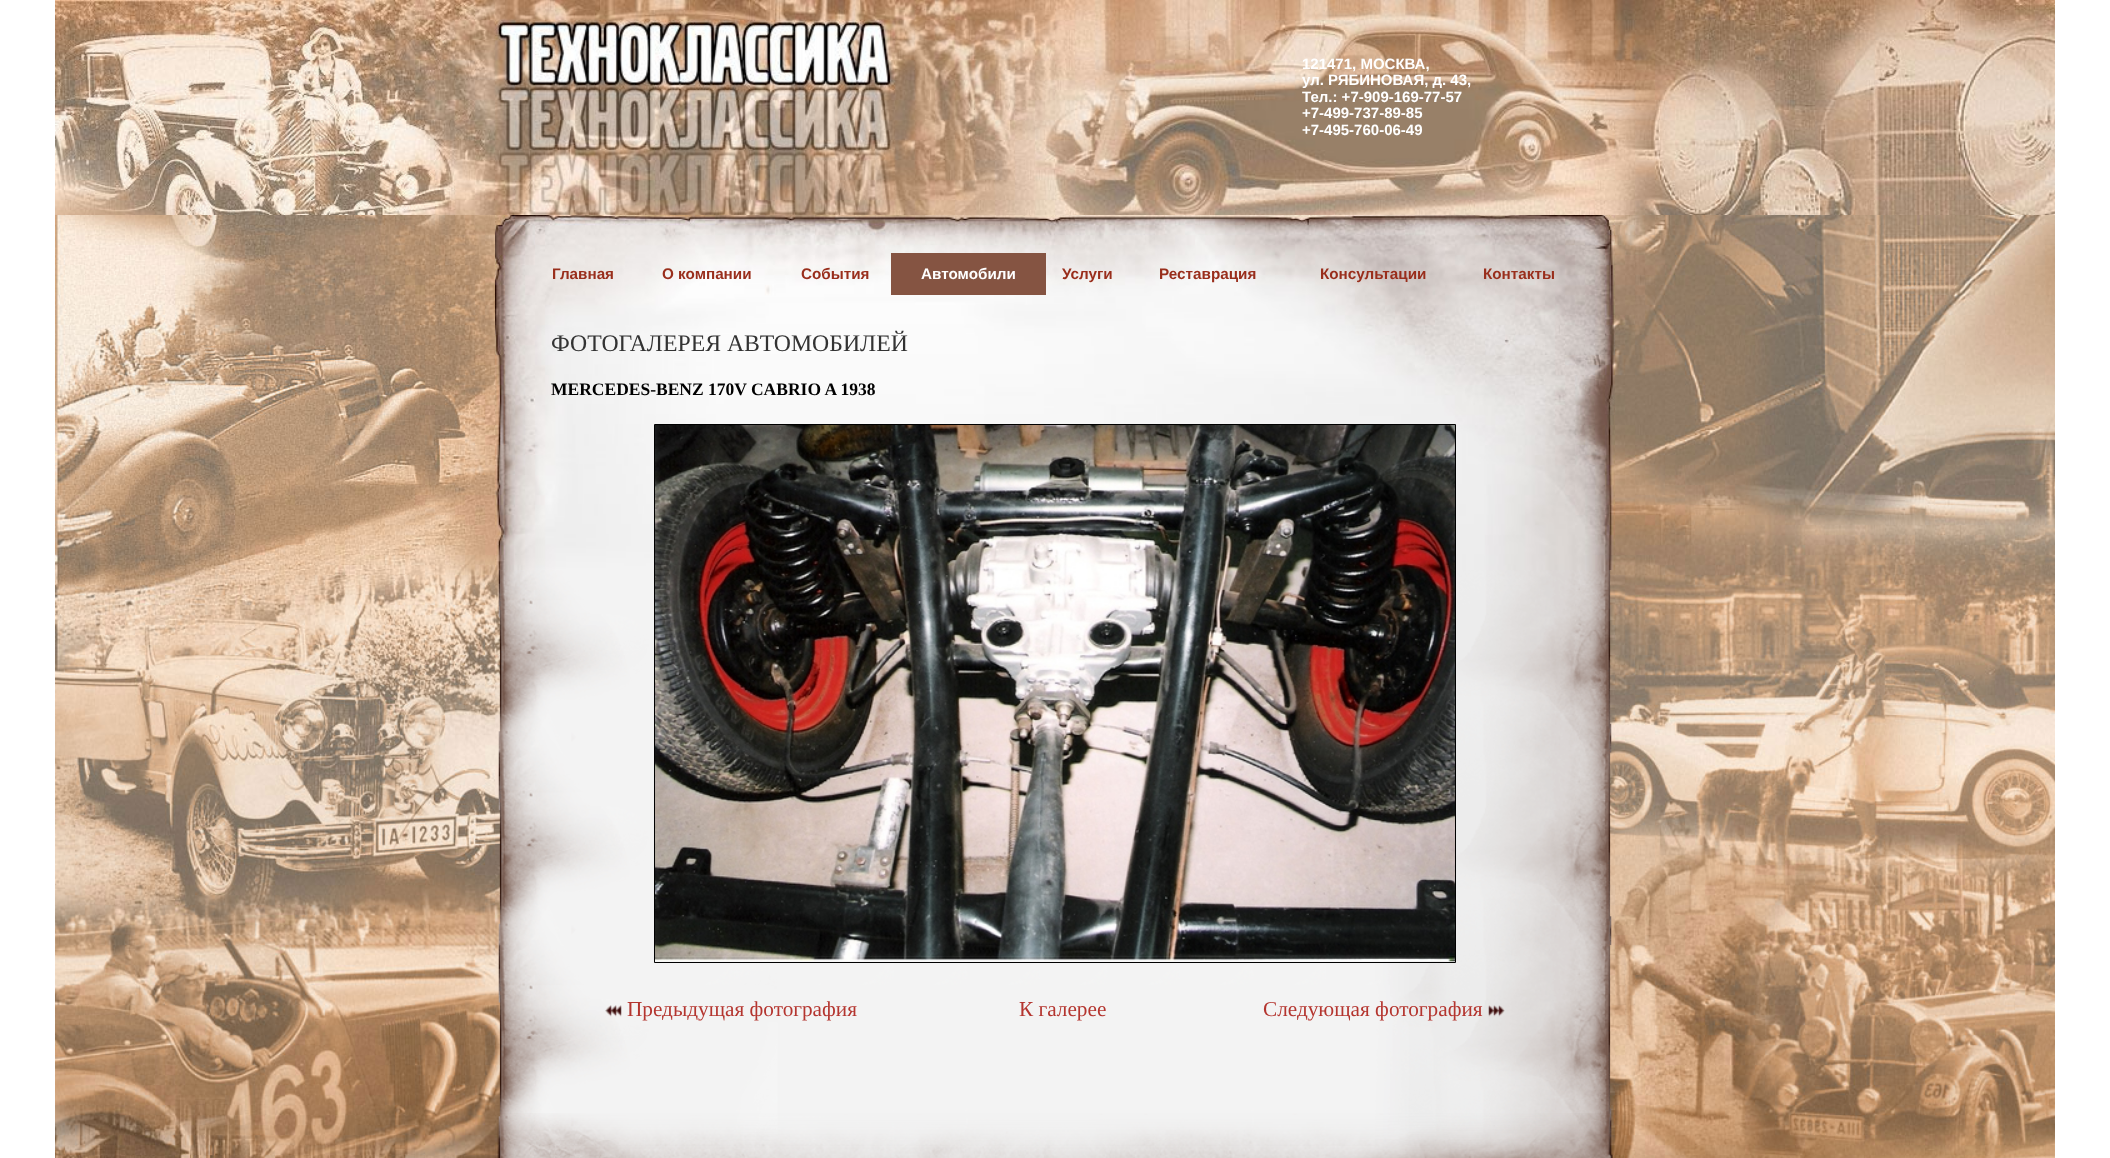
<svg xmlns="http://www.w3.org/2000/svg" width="2110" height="1158">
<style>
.a{font:bold 15px Liberation Sans;fill:#fff}
.b{font:bold 15.25px Liberation Sans;fill:#992e1c}
.c{font:bold 15.25px Liberation Sans;fill:#fff}
.d{font:23.75px Liberation Serif;fill:#333}
.e{font:bold 17.5px Liberation Serif;fill:#000}
.f{font:21.25px Liberation Serif;fill:#b4352f}
</style>
<rect width="100%" height="100%" fill="#fff"/>
<image href="1.png" x="55" y="0" width="2000" height="215"/>
<image href="2.png" x="55" y="215" width="2000" height="943"/>
<image href="3.png" x="498" y="570" width="1114" height="588"/>
<image href="4.png" x="495" y="215" width="1120" height="355"/>
<path fill="#855442" d="M891 253h155v42H891z"/>
<path fill="none" stroke="#000" d="M654.5 424.5h801v538H654.5z"/>
<image href="5.png" x="655" y="425" width="800" height="537"/>
<image href="6.png" x="605" y="1005" width="17" height="12"/>
<image href="7.png" x="1488" y="1005" width="17" height="12"/>
<image href="8.png" x="497" y="1113" width="1116" height="45"/>
<text class="a" x="1302" y="69">121471, МОСКВА,</text>
<text class="a" x="1302" y="85">ул. РЯБИНОВАЯ, д. 43,</text>
<text class="a" x="1302" y="102">Тел.: +7-909-169-77-57</text>
<text class="a" x="1302" y="118">+7-499-737-89-85</text>
<text class="a" x="1302" y="135">+7-495-760-06-49</text>
<text class="b" x="552" y="279">Главная</text>
<text class="b" x="662" y="279">О компании</text>
<text class="b" x="801" y="279">События</text>
<text class="c" x="921" y="279">Автомобили</text>
<text class="b" x="1062" y="279">Услуги</text>
<text class="b" x="1159" y="279">Реставрация</text>
<text class="b" x="1320" y="279">Консультации</text>
<text class="b" x="1483" y="279">Контакты</text>
<text class="d" x="551" y="351">ФОТОГАЛЕРЕЯ АВТОМОБИЛЕЙ</text>
<text class="e" x="551" y="395">MERCEDES-BENZ 170V CABRIO A 1938</text>
<text class="f" x="627" y="1016">Предыдущая фотография</text>
<text class="f" x="1019" y="1016">К галерее</text>
<text class="f" x="1263" y="1016">Следующая фотография</text>
</svg>
